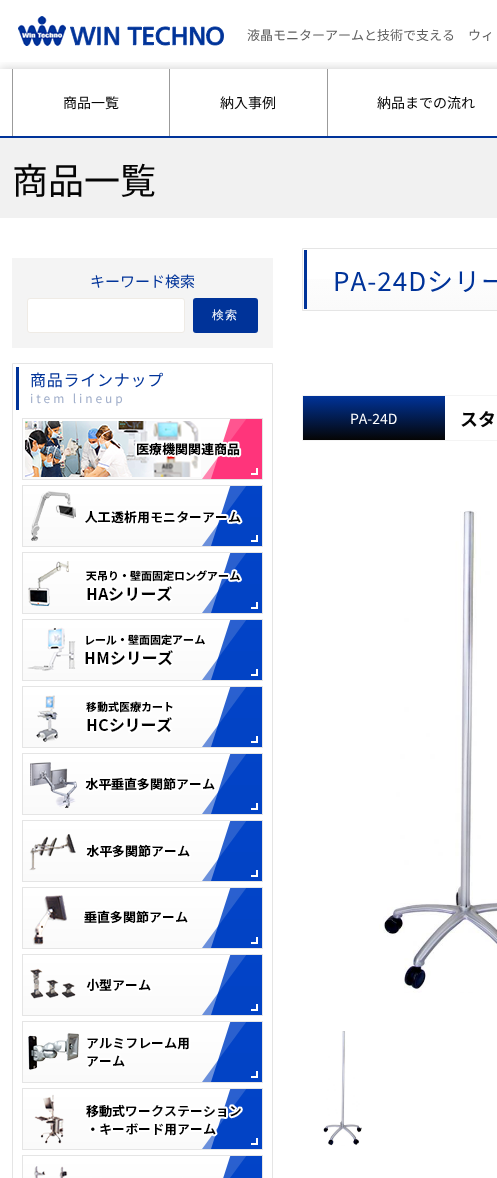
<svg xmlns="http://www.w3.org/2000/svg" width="497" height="1178">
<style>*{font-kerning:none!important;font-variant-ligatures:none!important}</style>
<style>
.a{font:13px Noto Sans JP;fill:#606060}
.b{font:14px Noto Sans JP;fill:#050505}
.c{font:36px Noto Sans JP;fill:#050505}
.d{font:15px Noto Sans JP;fill:#039}
.e{font:500 12px WenQuanYi Zen Hei;letter-spacing:1px;fill:#fff}
.f{font:16px Noto Sans JP;letter-spacing:0.75px;fill:#039}
.g{font:12px Noto Sans JP;letter-spacing:2.9px;fill:#a0aeca}
.h{font:26px Noto Sans JP;letter-spacing:1px;fill:#039}
.i{font:14px Noto Sans JP;fill:#fff}
.j{font:bold 18px Noto Sans JP;fill:#050505}
</style>
<defs>
<clipPath id="clip1"><path d="M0 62h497v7H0z"/></clipPath>
<linearGradient id="g1" gradientUnits="userSpaceOnUse" x1="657" y1="310" x2="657" y2="249"><stop offset="0" stop-color="#fafafa"/><stop offset="1" stop-color="#fff"/></linearGradient>
<linearGradient id="g2" gradientUnits="userSpaceOnUse" x1="374" y1="396" x2="374" y2="440"><stop offset="0" stop-color="#039"/><stop offset="1" stop-color="#050505"/></linearGradient>
</defs>
<rect width="100%" height="100%" fill="#fff"/>
<image href="1.png" x="18" y="16" width="206" height="30"/>
<g clip-path="url(#clip1)">
<path fill="#00000033" filter="blur(5.5px)" d="M0 69h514v69H0z"/>
</g>
<path fill="#039" d="M0 136h497v2H0z"/>
<path fill="#9b9b9b" d="M12 69h1v67H12z"/>
<path fill="#9b9b9b" d="M169 69h1v67H169z"/>
<path fill="#9b9b9b" d="M327 69h1v67H327z"/>
<path fill="#f1f1f1" d="M0 138h497v80H0z"/>
<path fill="#f4f4f4" d="M12 258h261v90H12z"/>
<rect fill="#fff" stroke="#efebe5" x="27.5" y="298.5" width="157" height="34" rx="2.5"/>
<rect fill="#039" x="193" y="298" width="65" height="35" rx="3"/>
<path fill="none" stroke="#e5e5e5" d="M12.5 363.5h260v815H12.5z"/>
<path fill="#039" d="M16 367h3v43H16z"/>
<image href="2.png" x="22" y="418" width="241" height="62"/>
<image href="3.png" x="22" y="485" width="241" height="62"/>
<image href="4.png" x="22" y="552" width="241" height="62"/>
<image href="5.png" x="22" y="619" width="241" height="62"/>
<image href="6.png" x="22" y="686" width="241" height="62"/>
<image href="7.png" x="22" y="753" width="241" height="62"/>
<image href="8.png" x="22" y="820" width="241" height="62"/>
<image href="9.png" x="22" y="887" width="241" height="62"/>
<image href="10.png" x="22" y="954" width="241" height="62"/>
<image href="11.png" x="22" y="1021" width="241" height="62"/>
<image href="12.png" x="22" y="1088" width="241" height="62"/>
<image href="13.png" x="22" y="1155" width="241" height="23"/>
<path fill="url(#g1)" d="M303 279h194v31H303z"/>
<path fill="none" stroke="#e5e5e5" d="M302.5 248.5h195v62H302.5z"/>
<path fill="#039" d="M304 250h3v59H304z"/>
<path fill="none" stroke="#f4f4f4" d="M302.5 395.5h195v45H302.5z"/>
<path fill="url(#g2)" d="M303 396h142v44H303z"/>
<image href="14.png" x="379" y="510" width="118" height="483"/>
<image href="15.png" x="323" y="1031" width="39" height="115"/>
<text class="a" x="247" y="40">液晶モニターアームと技術で支える　ウィ</text>
<text class="b" x="63" y="108">商品一覧</text>
<text class="b" x="220" y="108">納入事例</text>
<text class="b" x="377" y="108">納品までの流れ</text>
<text class="c" x="12" y="194">商品一覧</text>
<text class="d" x="90" y="287">キーワード検索</text>
<text class="e" x="212" y="319">検索</text>
<text class="f" x="30" y="386">商品ラインナップ</text>
<text class="g" x="30" y="403">item lineup</text>
<text class="h" x="333" y="291">PA-24Dシリー</text>
<text class="i" x="350" y="424">PA-24D</text>
<text class="j" x="460" y="426">スタ</text>
</svg>
